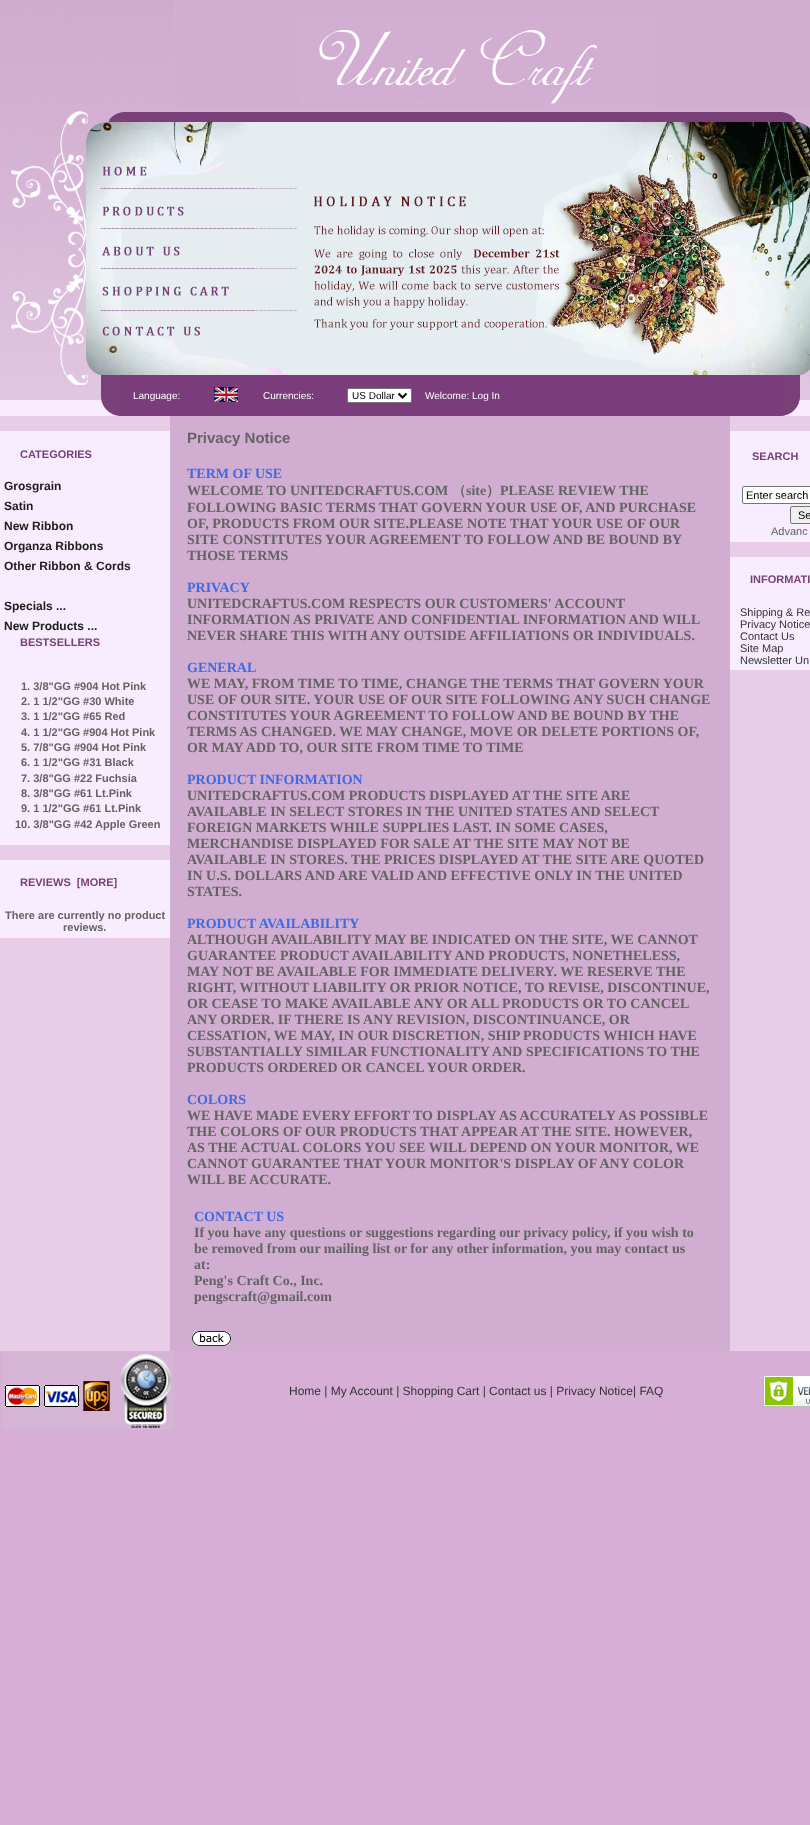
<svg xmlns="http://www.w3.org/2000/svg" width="810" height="1825">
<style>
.a{font:10px Liberation Sans;fill:#fff}
.b{font:10px Liberation Sans;fill:#000}
.c{font:bold 11px Liberation Sans;fill:#793f79}
.d{font:bold 12px Liberation Sans;fill:#202020}
.e{font:bold 11px Liberation Sans;fill:#636363}
.f{font:bold 15px Liberation Sans;fill:#636363}
.g{font:bold 14px Liberation Serif;fill:#4169e1}
.h{font:bold 14px Liberation Serif;fill:#636363}
.i{font:bold 14px WenQuanYi Zen Hei;fill:#636363}
.j{font:11px Liberation Sans;fill:#000}
.k{font:11px Liberation Sans;fill:#636363}
.l{font:11px Liberation Sans;fill:#333}
.m{font:12px Liberation Sans;fill:#333}
</style>
<rect width="100%" height="100%" fill="#d6aed6"/>
<image href="1.png" x="0" y="0" width="810" height="120"/>
<image href="2.png" x="1" y="120" width="809" height="26"/>
<image href="3.png" x="0" y="146" width="810" height="43"/>
<image href="4.png" x="0" y="189" width="810" height="41"/>
<image href="5.png" x="0" y="230" width="810" height="39"/>
<image href="6.png" x="0" y="269" width="810" height="43"/>
<image href="7.png" x="0" y="312" width="810" height="41"/>
<image href="8.png" x="0" y="353" width="810" height="22"/>
<image href="9.png" x="0" y="375" width="126" height="41"/>
<path fill="#7b3c7b" d="M126 375h655v41H126z"/>
<image href="10.png" x="214" y="387" width="24" height="15"/>
<rect fill="#fff" stroke="#767676" x="347.5" y="388.5" width="64" height="14" rx="1.5"/>
<path fill="none" stroke="#000" stroke-width="2" d="M398.5 393.5l4 4l4-4"/>
<image href="11.png" x="781" y="375" width="29" height="41"/>
<path fill="#e9cce7" d="M0 416h810v935H0z"/>
<path fill="#f8ecff" d="M0 431h170v45H0z"/>
<path fill="#f8ecff" d="M0 476h170v369H0z"/>
<path fill="#f8ecff" d="M0 860h170v78H0z"/>
<path fill="#d1aed1" d="M170 416h560v935H170z"/>
<image href="12.png" x="192" y="1331" width="39" height="15"/>
<path fill="#f8ecff" d="M730 431h80v111H730z"/>
<rect fill="#fff" stroke="#767676" x="742.5" y="486.5" width="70" height="17" rx="1.5"/>
<rect fill="#efefef" stroke="#767676" x="790.5" y="506.5" width="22" height="17" rx="1.5"/>
<path fill="#f8ecff" d="M730 557h80v113H730z"/>
<image href="13.png" x="2" y="1351" width="172" height="79"/>
<image href="14.png" x="763" y="1375" width="47" height="32"/>
<text class="a" x="133" y="399">Language:</text>
<text class="a" x="263" y="399">Currencies:</text>
<text class="b" x="352" y="399">US Dollar</text>
<text class="a" x="425" y="399">Welcome: Log In</text>
<text class="c" x="20" y="458">CATEGORIES</text>
<text class="d" x="4" y="490">Grosgrain</text>
<text class="d" x="4" y="510">Satin</text>
<text class="d" x="4" y="530">New Ribbon</text>
<text class="d" x="4" y="550">Organza Ribbons</text>
<text class="d" x="4" y="570">Other Ribbon &amp; Cords</text>
<text class="d" x="4" y="610">Specials ...</text>
<text class="d" x="4" y="630">New Products ...</text>
<text class="c" x="20" y="646">BESTSELLERS</text>
<text class="e" x="21" y="690">1. 3/8"GG #904 Hot Pink</text>
<text class="e" x="21" y="705">2. 1 1/2"GG #30 White</text>
<text class="e" x="21" y="720">3. 1 1/2"GG #65 Red</text>
<text class="e" x="21" y="736">4. 1 1/2"GG #904 Hot Pink</text>
<text class="e" x="21" y="751">5. 7/8"GG #904 Hot Pink</text>
<text class="e" x="21" y="766">6. 1 1/2"GG #31 Black</text>
<text class="e" x="21" y="782">7. 3/8"GG #22 Fuchsia</text>
<text class="e" x="21" y="797">8. 3/8"GG #61 Lt.Pink</text>
<text class="e" x="21" y="812">9. 1 1/2"GG #61 Lt.Pink</text>
<text class="e" x="15" y="828">10. 3/8"GG #42 Apple Green</text>
<text class="c" xml:space="preserve" x="20" y="886">REVIEWS  [MORE]</text>
<text class="e" x="5" y="919">There are currently no product</text>
<text class="e" x="63" y="931">reviews.</text>
<text class="f" x="187" y="443">Privacy Notice</text>
<text class="g" x="187" y="478">TERM OF USE</text>
<text class="h" x="187" y="495">WELCOME TO UNITEDCRAFTUS.COM</text>
<text class="i" x="452" y="495">（</text>
<text class="h" x="466" y="495">site</text>
<text class="i" x="486" y="495">）</text>
<text class="h" x="500" y="495">PLEASE REVIEW THE</text>
<text class="h" x="187" y="512">FOLLOWING BASIC TERMS THAT GOVERN YOUR USE OF, AND PURCHASE</text>
<text class="h" x="187" y="528">OF, PRODUCTS FROM OUR SITE.PLEASE NOTE THAT YOUR USE OF OUR</text>
<text class="h" x="187" y="544">SITE CONSTITUTES YOUR AGREEMENT TO FOLLOW AND BE BOUND BY</text>
<text class="h" x="187" y="560">THOSE TERMS</text>
<text class="g" x="187" y="592">PRIVACY</text>
<text class="h" x="187" y="608">UNITEDCRAFTUS.COM RESPECTS OUR CUSTOMERS' ACCOUNT</text>
<text class="h" x="187" y="624">INFORMATION AS PRIVATE AND CONFIDENTIAL INFORMATION AND WILL</text>
<text class="h" x="187" y="640">NEVER SHARE THIS WITH ANY OUTSIDE AFFILIATIONS OR INDIVIDUALS.</text>
<text class="g" x="187" y="672">GENERAL</text>
<text class="h" x="187" y="688">WE MAY, FROM TIME TO TIME, CHANGE THE TERMS THAT GOVERN YOUR</text>
<text class="h" x="187" y="704">USE OF OUR SITE. YOUR USE OF OUR SITE FOLLOWING ANY SUCH CHANGE</text>
<text class="h" x="187" y="720">CONSTITUTES YOUR AGREEMENT TO FOLLOW AND BE BOUND BY THE</text>
<text class="h" x="187" y="736">TERMS AS CHANGED. WE MAY CHANGE, MOVE OR DELETE PORTIONS OF,</text>
<text class="h" x="187" y="752">OR MAY ADD TO, OUR SITE FROM TIME TO TIME</text>
<text class="g" x="187" y="784">PRODUCT INFORMATION</text>
<text class="h" x="187" y="800">UNITEDCRAFTUS.COM PRODUCTS DISPLAYED AT THE SITE ARE</text>
<text class="h" x="187" y="816">AVAILABLE IN SELECT STORES IN THE UNITED STATES AND SELECT</text>
<text class="h" x="187" y="832">FOREIGN MARKETS WHILE SUPPLIES LAST. IN SOME CASES,</text>
<text class="h" x="187" y="848">MERCHANDISE DISPLAYED FOR SALE AT THE SITE MAY NOT BE</text>
<text class="h" x="187" y="864">AVAILABLE IN STORES. THE PRICES DISPLAYED AT THE SITE ARE QUOTED</text>
<text class="h" x="187" y="880">IN U.S. DOLLARS AND ARE VALID AND EFFECTIVE ONLY IN THE UNITED</text>
<text class="h" x="187" y="896">STATES.</text>
<text class="g" x="187" y="928">PRODUCT AVAILABILITY</text>
<text class="h" x="187" y="944">ALTHOUGH AVAILABILITY MAY BE INDICATED ON THE SITE, WE CANNOT</text>
<text class="h" x="187" y="960">GUARANTEE PRODUCT AVAILABILITY AND PRODUCTS, NONETHELESS,</text>
<text class="h" x="187" y="976">MAY NOT BE AVAILABLE FOR IMMEDIATE DELIVERY. WE RESERVE THE</text>
<text class="h" x="187" y="992">RIGHT, WITHOUT LIABILITY OR PRIOR NOTICE, TO REVISE, DISCONTINUE,</text>
<text class="h" x="187" y="1008">OR CEASE TO MAKE AVAILABLE ANY OR ALL PRODUCTS OR TO CANCEL</text>
<text class="h" x="187" y="1024">ANY ORDER. IF THERE IS ANY REVISION, DISCONTINUANCE, OR</text>
<text class="h" x="187" y="1040">CESSATION, WE MAY, IN OUR DISCRETION, SHIP PRODUCTS WHICH HAVE</text>
<text class="h" x="187" y="1056">SUBSTANTIALLY SIMILAR FUNCTIONALITY AND SPECIFICATIONS TO THE</text>
<text class="h" x="187" y="1072">PRODUCTS ORDERED OR CANCEL YOUR ORDER.</text>
<text class="g" x="187" y="1104">COLORS</text>
<text class="h" x="187" y="1120">WE HAVE MADE EVERY EFFORT TO DISPLAY AS ACCURATELY AS POSSIBLE</text>
<text class="h" x="187" y="1136">THE COLORS OF OUR PRODUCTS THAT APPEAR AT THE SITE. HOWEVER,</text>
<text class="h" x="187" y="1152">AS THE ACTUAL COLORS YOU SEE WILL DEPEND ON YOUR MONITOR, WE</text>
<text class="h" x="187" y="1168">CANNOT GUARANTEE THAT YOUR MONITOR'S DISPLAY OF ANY COLOR</text>
<text class="h" x="187" y="1184">WILL BE ACCURATE.</text>
<text class="g" x="194" y="1221">CONTACT US</text>
<text class="h" x="194" y="1237">If you have any questions or suggestions regarding our privacy policy, if you wish to</text>
<text class="h" x="194" y="1253">be removed from our mailing list or for any other information, you may contact us</text>
<text class="h" x="194" y="1269">at:</text>
<text class="h" x="194" y="1285">Peng's Craft Co., Inc.</text>
<text class="h" x="194" y="1301">pengscraft@gmail.com</text>
<text class="c" x="752" y="460">SEARCH</text>
<text class="j" x="746" y="499">Enter search</text>
<text class="j" x="798" y="519">Se</text>
<text class="k" x="771" y="535">Advanc</text>
<text class="c" x="750" y="583">INFORMATI</text>
<text class="l" x="740" y="616">Shipping &amp; Re</text>
<text class="l" x="740" y="628">Privacy Notice</text>
<text class="l" x="740" y="640">Contact Us</text>
<text class="l" x="740" y="652">Site Map</text>
<text class="l" x="740" y="664">Newsletter Un</text>
<text class="m" x="289" y="1395">Home | My Account | Shopping Cart | Contact us | Privacy Notice| FAQ</text>
</svg>
